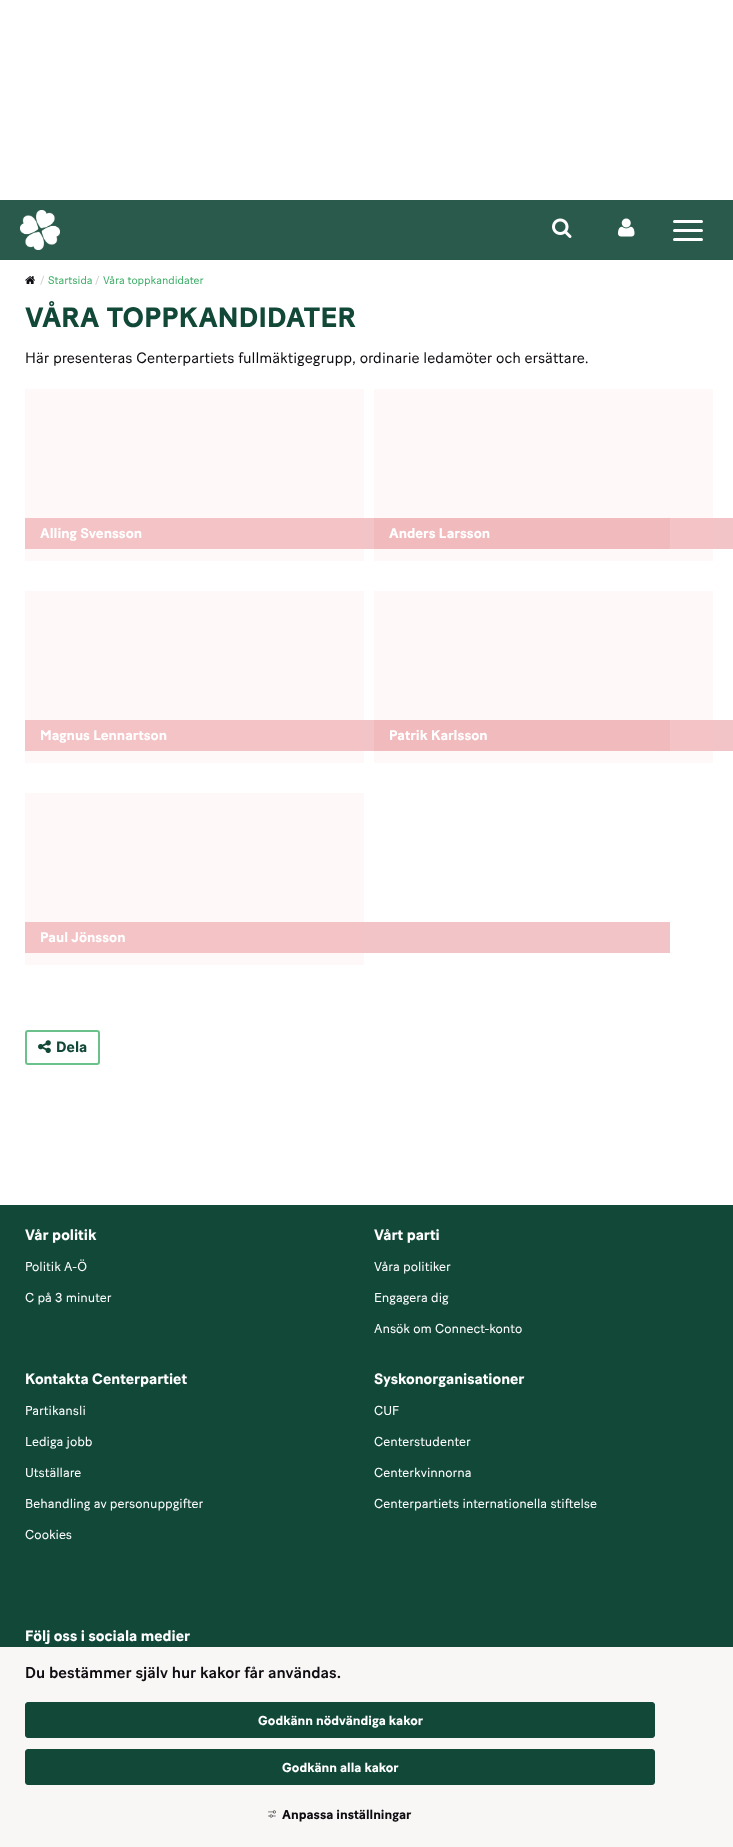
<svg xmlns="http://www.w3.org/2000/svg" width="733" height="1847">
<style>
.a{font:11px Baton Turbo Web;fill:#d1d1d1}
.b{font:11px Baton Turbo Web;fill:#40af69}
.c{font:bold 28px Baton Turbo Web;letter-spacing:0.25px;fill:#114838}
.d{font:15px Baton Turbo Web;fill:#0f0c11}
.e{font:bold 14px Baton Turbo Web;fill:#fff}
.f{font:bold 15px Baton Turbo Web;fill:#114838}
.g{font:bold 15px Baton Turbo Web;fill:#fff}
.h{font:13px Baton Turbo Web;fill:#fff}
.i{font:500 15.75px Baton Turbo Web;fill:#0f0c11}
.j{font:bold 13px Baton Turbo Web;fill:#fff}
.k{font:bold 13px Baton Turbo Web;fill:#0f0c11}
</style>
<rect width="100%" height="100%" fill="#fff"/>
<path fill="#f3c4c7" d="M364 922h306v31H364z"/>
<path fill="#f3c4c7" d="M713 720h20v31H713z"/>
<path fill="#f3c4c7" d="M364 720h10v31H364z"/>
<path fill="#f3c4c7" d="M713 518h20v31H713z"/>
<path fill="#f3c4c7" d="M364 518h10v31H364z"/>
<path fill="#295a4c" d="M0 200h733v60H0z"/>
<image href="1.png" x="20" y="210" width="40" height="40"/>
<image href="2.png" x="552" y="218" width="20" height="20"/>
<image href="3.png" x="618" y="218" width="17" height="19"/>
<rect fill="#fff" x="673" y="220" width="30" height="3" rx="1.5"/>
<rect fill="#fff" x="673" y="229" width="30" height="3" rx="1.5"/>
<rect fill="#fff" x="673" y="238" width="30" height="3" rx="1.5"/>
<image href="4.png" x="25" y="276" width="10" height="8"/>
<path fill="#fef8f8" d="M25 389h339v172H25z"/>
<path fill="#f3c3c6" d="M25 518h339v31H25z"/>
<path fill="#fef8f8" d="M374 389h339v172H374z"/>
<path fill="#f3c3c6" d="M670 518h43v31H670z"/>
<path fill="#f1bbbe" d="M374 518h296v31H374z"/>
<path fill="#fef8f8" d="M25 591h339v172H25z"/>
<path fill="#f3c3c6" d="M25 720h339v31H25z"/>
<path fill="#fef8f8" d="M374 591h339v172H374z"/>
<path fill="#f3c3c6" d="M670 720h43v31H670z"/>
<path fill="#f1bbbe" d="M374 720h296v31H374z"/>
<path fill="#fef8f8" d="M25 793h339v172H25z"/>
<path fill="#f3c3c6" d="M25 922h339v31H25z"/>
<rect fill="none" stroke="#6ac18a" stroke-width="2" x="26" y="1031" width="73" height="33" rx="2"/>
<image href="5.png" x="38" y="1040" width="13" height="14"/>
<path fill="#114838" d="M0 1205h733v442H0z"/>
<path fill="#f8f7f5" d="M0 1647h733v200H0z"/>
<rect fill="#114838" stroke="#114838" x="25.5" y="1702.5" width="629" height="35" rx="2.5"/>
<rect fill="#114838" stroke="#114838" x="25.5" y="1749.5" width="629" height="35" rx="2.5"/>
<image href="6.png" x="268" y="1810" width="8" height="8"/>
<text class="a" x="40" y="284">/</text>
<text class="b" x="48" y="284">Startsida</text>
<text class="a" x="95" y="284">/</text>
<text class="b" x="103" y="284">Våra toppkandidater</text>
<text class="c" x="25" y="327">VÅRA TOPPKANDIDATER</text>
<text class="d" x="25" y="363">Här presenteras Centerpartiets fullmäktigegrupp, ordinarie ledamöter och ersättare.</text>
<text class="e" x="40" y="538">Alling Svensson</text>
<text class="e" x="389" y="538">Anders Larsson</text>
<text class="e" x="40" y="740">Magnus Lennartson</text>
<text class="e" x="389" y="740">Patrik Karlsson</text>
<text class="e" x="40" y="942">Paul Jönsson</text>
<text class="f" x="56" y="1052">Dela</text>
<text class="g" x="25" y="1240">Vår politik</text>
<text class="h" x="25" y="1271">Politik A-Ö</text>
<text class="h" x="25" y="1302">C på 3 minuter</text>
<text class="g" x="374" y="1240">Vårt parti</text>
<text class="h" x="374" y="1271">Våra politiker</text>
<text class="h" x="374" y="1302">Engagera dig</text>
<text class="h" x="374" y="1333">Ansök om Connect-konto</text>
<text class="g" x="25" y="1384">Kontakta Centerpartiet</text>
<text class="h" x="25" y="1415">Partikansli</text>
<text class="h" x="25" y="1446">Lediga jobb</text>
<text class="h" x="25" y="1477">Utställare</text>
<text class="h" x="25" y="1508">Behandling av personuppgifter</text>
<text class="h" x="25" y="1539">Cookies</text>
<text class="g" x="374" y="1384">Syskonorganisationer</text>
<text class="h" x="374" y="1415">CUF</text>
<text class="h" x="374" y="1446">Centerstudenter</text>
<text class="h" x="374" y="1477">Centerkvinnorna</text>
<text class="h" x="374" y="1508">Centerpartiets internationella stiftelse</text>
<text class="g" x="25" y="1641">Följ oss i sociala medier</text>
<text class="i" x="25" y="1678">Du bestämmer själv hur kakor får användas.</text>
<text class="j" x="258" y="1725">Godkänn nödvändiga kakor</text>
<text class="j" x="282" y="1772">Godkänn alla kakor</text>
<text class="k" x="282" y="1819">Anpassa inställningar</text>
</svg>
